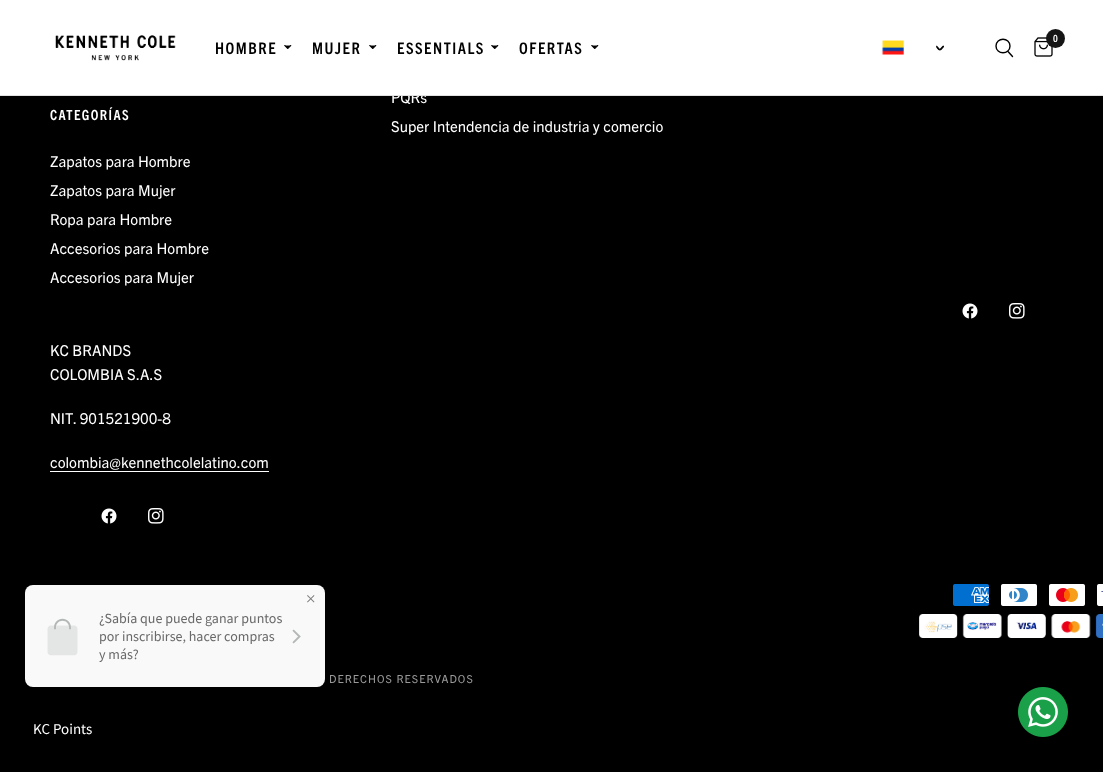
<svg xmlns="http://www.w3.org/2000/svg" width="1103" height="772">
<style>
.a{font:bold 10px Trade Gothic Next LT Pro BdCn;fill:#fff}
.b{font:bold 16px Trade Gothic Next LT Pro BdCn;letter-spacing:1.5px;fill:#000}
.c{font:bold 14px Trade Gothic Next LT Pro BdCn;letter-spacing:1.4px;fill:#fff}
.d{font:15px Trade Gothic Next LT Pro;fill:#fff}
.e{font:11px Trade Gothic Next LT Pro;letter-spacing:1px;fill:#999}
</style>
<rect width="100%" height="100%" fill="#000"/>
<path fill="#fff" d="M0 0h1103v95H0z"/>
<image href="1.png" x="881" y="40" width="23" height="15"/>
<image href="2.png" x="936" y="45" width="8" height="6"/>
<path fill="none" stroke="#000" stroke-width="1.4" stroke-linecap="round" stroke-linejoin="round" d="M1008 51.5l4.5 5m-2.5-10.5c0 9-14 9-14 0c0-9 14-9 14 0z"/>
<image href="3.png" x="1034" y="37" width="19" height="20"/>
<circle fill="#151515" cx="1055.5" cy="38.5" r="9.5"/>
<image href="4.png" x="55" y="35" width="121" height="26"/>
<image href="5.png" x="284" y="45" width="8" height="4"/>
<image href="5.png" x="369" y="45" width="8" height="4"/>
<image href="5.png" x="491" y="45" width="8" height="4"/>
<image href="5.png" x="591" y="45" width="8" height="4"/>
<image href="6.png" x="962" y="303" width="16" height="16"/>
<image href="7.png" x="1009" y="303" width="16" height="16"/>
<path fill="#fff" d="M50 471h219v1H50z"/>
<image href="6.png" x="101" y="508" width="16" height="16"/>
<image href="7.png" x="148" y="508" width="16" height="16"/>
<image href="8.png" x="953" y="584" width="36" height="22"/>
<image href="9.png" x="1001" y="584" width="36" height="22"/>
<image href="10.png" x="1049" y="584" width="36" height="22"/>
<image href="11.png" x="1097" y="584" width="6" height="22"/>
<image href="12.png" x="919" y="614" width="184" height="24"/>
<image href="13.png" x="25" y="585" width="300" height="102"/>
<image href="14.png" x="34" y="723" width="58" height="12"/>
<image href="15.png" x="1018" y="687" width="50" height="50"/>
<text class="a" x="1053" y="42">0</text>
<text class="b" x="215" y="54">HOMBRE</text>
<text class="b" x="312" y="54">MUJER</text>
<text class="b" x="397" y="54">ESSENTIALS</text>
<text class="b" x="519" y="54">OFERTAS</text>
<text class="c" x="50" y="120">CATEGORÍAS</text>
<text class="d" x="50" y="167">Zapatos para Hombre</text>
<text class="d" x="50" y="196">Zapatos para Mujer</text>
<text class="d" x="50" y="225">Ropa para Hombre</text>
<text class="d" x="50" y="254">Accesorios para Hombre</text>
<text class="d" x="50" y="283">Accesorios para Mujer</text>
<text class="d" x="391" y="103">PQRs</text>
<path fill="#e2e2e2" d="M0 95h1103v1H0z"/>
<text class="d" x="391" y="132">Super Intendencia de industria y comercio</text>
<text class="d" x="50" y="356">KC BRANDS</text>
<text class="d" x="50" y="380">COLOMBIA S.A.S</text>
<text class="d" x="50" y="424">NIT. 901521900-8</text>
<text class="d" x="50" y="468">colombia@kennethcolelatino.com</text>
<text class="e" x="329" y="683">DERECHOS RESERVADOS</text>
</svg>
